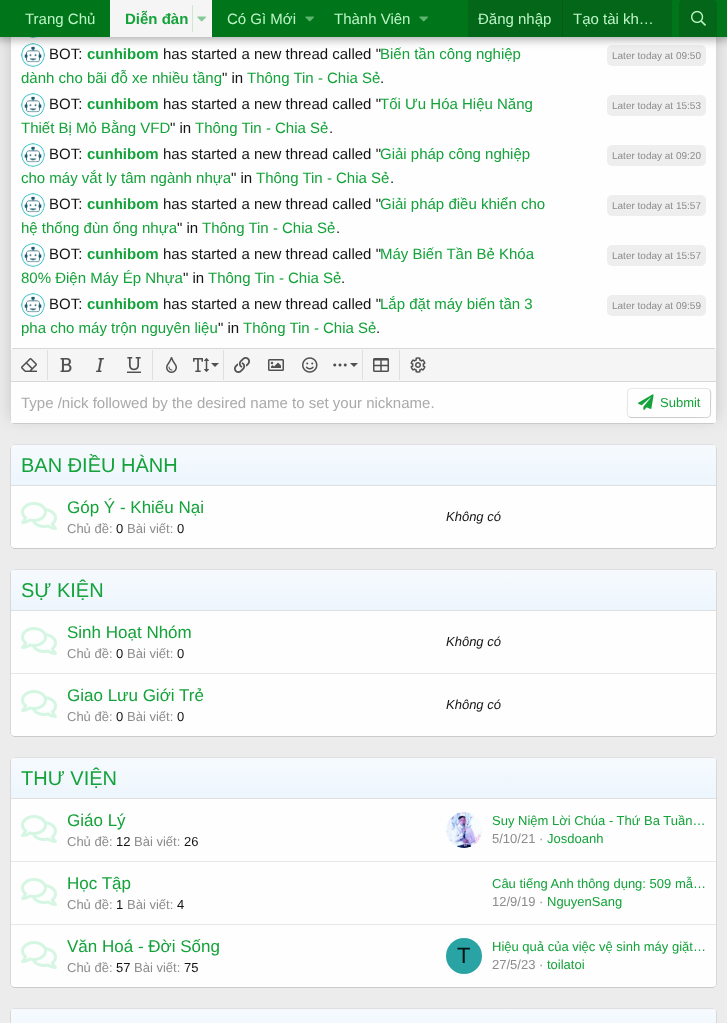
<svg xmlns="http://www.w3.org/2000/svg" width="727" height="1023">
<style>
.a{font:15px Liberation Sans;fill:#bcf5c6}
.b{font:bold 15px Liberation Sans;fill:#14a23a}
.c{font:15px Liberation Sans;fill:#141414}
.d{font:15px Liberation Sans;fill:#14a23a}
.e{font:10px Liberation Sans;fill:#8c8c8c}
.f{font:15px Liberation Sans;fill:#aaa}
.g{font:13px Liberation Sans;fill:#14a23a}
.h{font:20px Liberation Sans;fill:#14a23a}
.i{font:17px Liberation Sans;fill:#14a23a}
.j{font:13px Liberation Sans;fill:#8c8c8c}
.k{font:13px Liberation Sans;fill:#141414}
.l{font:italic 13px Liberation Sans;fill:#141414}
.m{font:22px Liberation Sans;fill:#051414}
</style>
<defs>
<linearGradient id="g1" gradientUnits="userSpaceOnUse" x1="364" y1="485" x2="364" y2="445"><stop offset="0" stop-color="#edf6fd"/><stop offset="1" stop-color="#f6fafe"/></linearGradient>
<linearGradient id="g2" gradientUnits="userSpaceOnUse" x1="364" y1="610" x2="364" y2="570"><stop offset="0" stop-color="#edf6fd"/><stop offset="1" stop-color="#f6fafe"/></linearGradient>
<linearGradient id="g3" gradientUnits="userSpaceOnUse" x1="364" y1="798" x2="364" y2="758"><stop offset="0" stop-color="#edf6fd"/><stop offset="1" stop-color="#f6fafe"/></linearGradient>
<linearGradient id="g4" gradientUnits="userSpaceOnUse" x1="364" y1="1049" x2="364" y2="1009"><stop offset="0" stop-color="#edf6fd"/><stop offset="1" stop-color="#f6fafe"/></linearGradient>
</defs>
<rect width="100%" height="100%" fill="#ececec"/>
<rect fill="#00000026" filter="blur(7.5px)" x="10" y="-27" width="707" height="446" rx="4"/>
<rect fill="#fefefe" x="10" y="-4" width="707" height="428" rx="4"/>
<path fill="none" stroke="#d8d8d8" d="M715.5-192.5l1 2.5v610l-1 2.5"/>
<path fill="none" stroke="#cbcbcb" d="M715.5 422.5l-2.5 1h-699l-2.5-1"/>
<path fill="none" stroke="#d8d8d8" d="M11.5 422.5l-1-2.5v-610l1-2.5"/>
<image href="4.png" x="28" y="37" width="10" height="1"/>
<image href="5.png" x="21" y="43" width="24" height="24"/>
<rect fill="#eee" x="607" y="45" width="99" height="21" rx="5"/>
<path fill="#0000004d" filter="blur(4px)" d="M-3 -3h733v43H-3z"/>
<path fill="#007519" d="M0 0h727v37H0z"/>
<path fill="#f5f5f5" d="M110 0h102v37H110z"/>
<path fill="#cee7d4" d="M192 5h1v27H192z"/>
<image href="1.png" x="197" y="16" width="9" height="6"/>
<image href="2.png" x="305" y="16" width="9" height="6"/>
<image href="2.png" x="419" y="16" width="9" height="6"/>
<path fill="#036618" d="M468 0h204v37H468z"/>
<path fill="#065a17" d="M562 0h1v37H562z"/>
<path fill="#036618" d="M683 0h30c2 0 4 2 4 4v33h-38v-33c0-2 2-4 4-4z"/>
<image href="3.png" x="691" y="10" width="15" height="16"/>
<image href="5.png" x="21" y="93" width="24" height="24"/>
<rect fill="#eee" x="607" y="95" width="99" height="21" rx="5"/>
<image href="5.png" x="21" y="143" width="24" height="24"/>
<rect fill="#eee" x="607" y="145" width="99" height="21" rx="5"/>
<image href="5.png" x="21" y="193" width="24" height="24"/>
<rect fill="#eee" x="607" y="195" width="99" height="21" rx="5"/>
<image href="5.png" x="21" y="243" width="24" height="24"/>
<rect fill="#eee" x="607" y="245" width="99" height="21" rx="5"/>
<image href="5.png" x="21" y="293" width="24" height="24"/>
<rect fill="#eee" x="607" y="295" width="99" height="21" rx="5"/>
<path fill="#f5f5f5" d="M13 349h701c1 0 2 0 2 1v31h-705v-31z"/>
<path fill="#d8d8d8" d="M12 348h703v1H12z"/>
<path fill="#d8d8d8" d="M11 381h705v1H11z"/>
<image href="6.png" x="21" y="358" width="16" height="14"/>
<path fill="#dfdfdf" d="M47 350h1v30H47z"/>
<image href="7.png" x="60" y="358" width="12" height="14"/>
<image href="8.png" x="96" y="358" width="8" height="14"/>
<image href="9.png" x="127" y="357" width="14" height="16"/>
<path fill="#dfdfdf" d="M152 350h1v30H152z"/>
<image href="10.png" x="166" y="357" width="11" height="16"/>
<image href="11.png" x="193" y="358" width="16" height="14"/>
<path fill="#505050" d="M211 363h8l-4 4z"/>
<path fill="#dfdfdf" d="M223 350h1v30H223z"/>
<image href="12.png" x="234" y="357" width="16" height="16"/>
<image href="13.png" x="268" y="359" width="16" height="12"/>
<image href="14.png" x="302" y="357" width="16" height="16"/>
<image href="15.png" x="333" y="363" width="14" height="4"/>
<path fill="#505050" d="M350 363h8l-4 4z"/>
<path fill="#dfdfdf" d="M362 350h1v30H362z"/>
<image href="16.png" x="373" y="358" width="16" height="14"/>
<path fill="#dfdfdf" d="M399 350h1v30H399z"/>
<image href="17.png" x="410" y="357" width="16" height="16"/>
<path fill="#fefefe" d="M11 382h705v39c0 1-1 2-2 2h-701c-1 0-2-1-2-2z"/>
<path fill="none" stroke="#cbcbcb" d="M709.5 389.5c2 2 1 10.5 1 13.5c0 17 2 14.5-16 14.5h-63.5l-2.5-1"/>
<path fill="none" stroke="#e5e5e5" d="M628.5 416.5c-2-2-1-10.5-1-13.5c0-17-2-14.5 16-14.5h63.5l2.5 1"/>
<image href="18.png" x="638" y="394" width="16" height="16"/>
<rect fill="#fefefe" x="10" y="444" width="707" height="105" rx="4"/>
<path fill="none" stroke="#dfdfdf" d="M11.5 445.5l2.5-1h699l2.5 1"/>
<path fill="none" stroke="#d8d8d8" d="M715.5 445.5l1 2.5v97.5l-1 2"/>
<path fill="none" stroke="#cbcbcb" d="M715.5 547.5l-2.5 1h-699l-2.5-1"/>
<path fill="none" stroke="#d8d8d8" d="M11.5 547.5l-1-2v-81.5v-16l1-2.5"/>
<path fill="url(#g1)" d="M14 445h699c1.5 0 3 1.5 3 3v37h-705v-37c0-1.5 1.5-3 3-3z"/>
<path fill="#dfdfdf" d="M11 485h705v1H11z"/>
<image href="19.png" x="21" y="502" width="36" height="28"/>
<rect fill="#fefefe" x="10" y="569" width="707" height="168" rx="4"/>
<path fill="none" stroke="#dfdfdf" d="M11.5 570.5l2.5-1h699l2.5 1"/>
<path fill="none" stroke="#d8d8d8" d="M715.5 570.5c.5 .5 1 1.5 1 2.5v160c0 1-.5 2-1 2.5"/>
<path fill="none" stroke="#cbcbcb" d="M715.5 735.5l-2.5 1h-699l-2.5-1"/>
<path fill="none" stroke="#d8d8d8" d="M11.5 735.5c-.5-.5-1-1.5-1-2.5v-160c0-1 .5-2 1-2.5"/>
<path fill="url(#g2)" d="M14 570h699c1.5 0 3 1.5 3 3v37h-705v-37c0-1.5 1.5-3 3-3z"/>
<path fill="#dfdfdf" d="M11 610h705v1H11z"/>
<image href="19.png" x="21" y="627" width="36" height="28"/>
<path fill="#e7e7e7" d="M11 673h705v1H11z"/>
<image href="19.png" x="21" y="690" width="36" height="28"/>
<rect fill="#fefefe" x="10" y="757" width="707" height="231" rx="4"/>
<path fill="none" stroke="#dfdfdf" d="M11.5 758.5l2.5-1h699l2.5 1"/>
<path fill="none" stroke="#d8d8d8" d="M715.5 758.5c.5 .5 1 1.5 1 2.5v223c0 1-.5 2-1 2.5"/>
<path fill="none" stroke="#cbcbcb" d="M715.5 986.5l-2.5 1h-699l-2.5-1"/>
<path fill="none" stroke="#d8d8d8" d="M11.5 986.5c-.5-.5-1-1.5-1-2.5v-223c0-1 .5-2 1-2.5"/>
<path fill="url(#g3)" d="M14 758h699c1.5 0 3 1.5 3 3v37h-705v-37c0-1.5 1.5-3 3-3z"/>
<path fill="#dfdfdf" d="M11 798h705v1H11z"/>
<image href="19.png" x="21" y="815" width="36" height="28"/>
<image href="20.png" x="446" y="812" width="36" height="36"/>
<path fill="#e7e7e7" d="M11 861h705v1H11z"/>
<image href="19.png" x="21" y="878" width="36" height="28"/>
<path fill="#e7e7e7" d="M11 924h705v1H11z"/>
<image href="19.png" x="21" y="941" width="36" height="28"/>
<circle fill="#29a3a3" cx="464" cy="956" r="18"/>
<rect fill="#fefefe" x="10" y="1008" width="707" height="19" rx="4"/>
<path fill="none" stroke="#dfdfdf" d="M11.5 1009.5l2.5-1h699l2.5 1"/>
<path fill="none" stroke="#d8d8d8" d="M715.5 1009.5c.5 .5 1 1.5 1 2.5v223c0 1-.5 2-1 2.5"/>
<path fill="none" stroke="#d8d8d8" d="M11.5 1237.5c-.5-.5-1-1.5-1-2.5v-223c0-1 .5-2 1-2.5"/>
<path fill="url(#g4)" d="M14 1009h699c1.5 0 3 1.5 3 3v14h-705v-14c0-1.5 1.5-3 3-3z"/>
<text class="a" x="25" y="24">Trang Chủ</text>
<text class="b" x="125" y="24">Diễn đàn</text>
<text class="a" x="227" y="24">Có Gì Mới</text>
<text class="a" x="334" y="24">Thành Viên</text>
<text class="a" x="478" y="24">Đăng nhập</text>
<text class="a" x="573" y="24">Tạo tài kh…</text>
<text class="c" x="49" y="59">BOT:</text>
<text class="b" x="87" y="59">cunhibom</text>
<text class="c" x="163" y="59">has started a new thread called "</text>
<text class="d" x="380" y="59">Biến tần công nghiệp</text>
<text class="d" x="21" y="83">dành cho bãi đỗ xe nhiều tầng</text>
<text class="c" x="222" y="83">" in</text>
<text class="d" x="247" y="83">Thông Tin - Chia Sẻ</text>
<text class="c" x="380" y="83">.</text>
<text class="e" x="612" y="59">Later today at 09:50</text>
<text class="c" x="49" y="109">BOT:</text>
<text class="b" x="87" y="109">cunhibom</text>
<text class="c" x="163" y="109">has started a new thread called "</text>
<text class="d" x="380" y="109">Tối Ưu Hóa Hiệu Năng</text>
<text class="d" x="21" y="133">Thiết Bị Mỏ Bằng VFD</text>
<text class="c" x="170" y="133">" in</text>
<text class="d" x="195" y="133">Thông Tin - Chia Sẻ</text>
<text class="c" x="329" y="133">.</text>
<text class="e" x="612" y="109">Later today at 15:53</text>
<text class="c" x="49" y="159">BOT:</text>
<text class="b" x="87" y="159">cunhibom</text>
<text class="c" x="163" y="159">has started a new thread called "</text>
<text class="d" x="380" y="159">Giải pháp công nghiệp</text>
<text class="d" x="21" y="183">cho máy vắt ly tâm ngành nhựa</text>
<text class="c" x="231" y="183">" in</text>
<text class="d" x="256" y="183">Thông Tin - Chia Sẻ</text>
<text class="c" x="390" y="183">.</text>
<text class="e" x="612" y="159">Later today at 09:20</text>
<text class="c" x="49" y="209">BOT:</text>
<text class="b" x="87" y="209">cunhibom</text>
<text class="c" x="163" y="209">has started a new thread called "</text>
<text class="d" x="380" y="209">Giải pháp điều khiển cho</text>
<text class="d" x="21" y="233">hệ thống đùn ống nhựa</text>
<text class="c" x="177" y="233">" in</text>
<text class="d" x="202" y="233">Thông Tin - Chia Sẻ</text>
<text class="c" x="336" y="233">.</text>
<text class="e" x="612" y="209">Later today at 15:57</text>
<text class="c" x="49" y="259">BOT:</text>
<text class="b" x="87" y="259">cunhibom</text>
<text class="c" x="163" y="259">has started a new thread called "</text>
<text class="d" x="380" y="259">Máy Biến Tần Bẻ Khóa</text>
<text class="d" x="21" y="283">80% Điện Máy Ép Nhựa</text>
<text class="c" x="183" y="283">" in</text>
<text class="d" x="208" y="283">Thông Tin - Chia Sẻ</text>
<text class="c" x="341" y="283">.</text>
<text class="e" x="612" y="259">Later today at 15:57</text>
<text class="c" x="49" y="309">BOT:</text>
<text class="b" x="87" y="309">cunhibom</text>
<text class="c" x="163" y="309">has started a new thread called "</text>
<text class="d" x="380" y="309">Lắp đặt máy biến tần 3</text>
<text class="d" x="21" y="333">pha cho máy trộn nguyên liệu</text>
<text class="c" x="218" y="333">" in</text>
<text class="d" x="243" y="333">Thông Tin - Chia Sẻ</text>
<text class="c" x="376" y="333">.</text>
<text class="e" x="612" y="309">Later today at 09:59</text>
<text class="f" x="21" y="408">Type /nick followed by the desired name to set your nickname.</text>
<text class="g" x="660" y="407">Submit</text>
<text class="h" x="21" y="472">BAN ĐIỀU HÀNH</text>
<text class="i" x="67" y="513">Góp Ý - Khiếu Nại</text>
<text class="j" x="67" y="533">Chủ đề:</text>
<text class="k" x="116" y="533">0</text>
<text class="j" x="127" y="533">Bài viết:</text>
<text class="k" x="177" y="533">0</text>
<text class="l" x="446" y="521">Không có</text>
<text class="h" x="21" y="597">SỰ KIỆN</text>
<text class="i" x="67" y="638">Sinh Hoạt Nhóm</text>
<text class="j" x="67" y="658">Chủ đề:</text>
<text class="k" x="116" y="658">0</text>
<text class="j" x="127" y="658">Bài viết:</text>
<text class="k" x="177" y="658">0</text>
<text class="l" x="446" y="646">Không có</text>
<text class="i" x="67" y="701">Giao Lưu Giới Trẻ</text>
<text class="j" x="67" y="721">Chủ đề:</text>
<text class="k" x="116" y="721">0</text>
<text class="j" x="127" y="721">Bài viết:</text>
<text class="k" x="177" y="721">0</text>
<text class="l" x="446" y="709">Không có</text>
<text class="h" x="21" y="785">THƯ VIỆN</text>
<text class="i" x="67" y="826">Giáo Lý</text>
<text class="j" x="67" y="846">Chủ đề:</text>
<text class="k" x="116" y="846">12</text>
<text class="j" x="134" y="846">Bài viết:</text>
<text class="k" x="184" y="846">26</text>
<text class="g" x="492" y="825">Suy Niệm Lời Chúa - Thứ Ba Tuần…</text>
<text class="j" x="492" y="843">5/10/21 ·</text>
<text class="g" x="547" y="843">Josdoanh</text>
<text class="i" x="67" y="889">Học Tập</text>
<text class="j" x="67" y="909">Chủ đề:</text>
<text class="k" x="116" y="909">1</text>
<text class="j" x="127" y="909">Bài viết:</text>
<text class="k" x="177" y="909">4</text>
<text class="g" x="492" y="888">Câu tiếng Anh thông dụng: 509 mẫ…</text>
<text class="j" x="492" y="906">12/9/19 ·</text>
<text class="g" x="547" y="906">NguyenSang</text>
<text class="i" x="67" y="952">Văn Hoá - Đời Sống</text>
<text class="j" x="67" y="972">Chủ đề:</text>
<text class="k" x="116" y="972">57</text>
<text class="j" x="134" y="972">Bài viết:</text>
<text class="k" x="184" y="972">75</text>
<text class="m" x="457" y="963">T</text>
<text class="g" x="492" y="951">Hiệu quả của việc vệ sinh máy giặt…</text>
<text class="j" x="492" y="969">27/5/23 ·</text>
<text class="g" x="547" y="969">toilatoi</text>
</svg>
